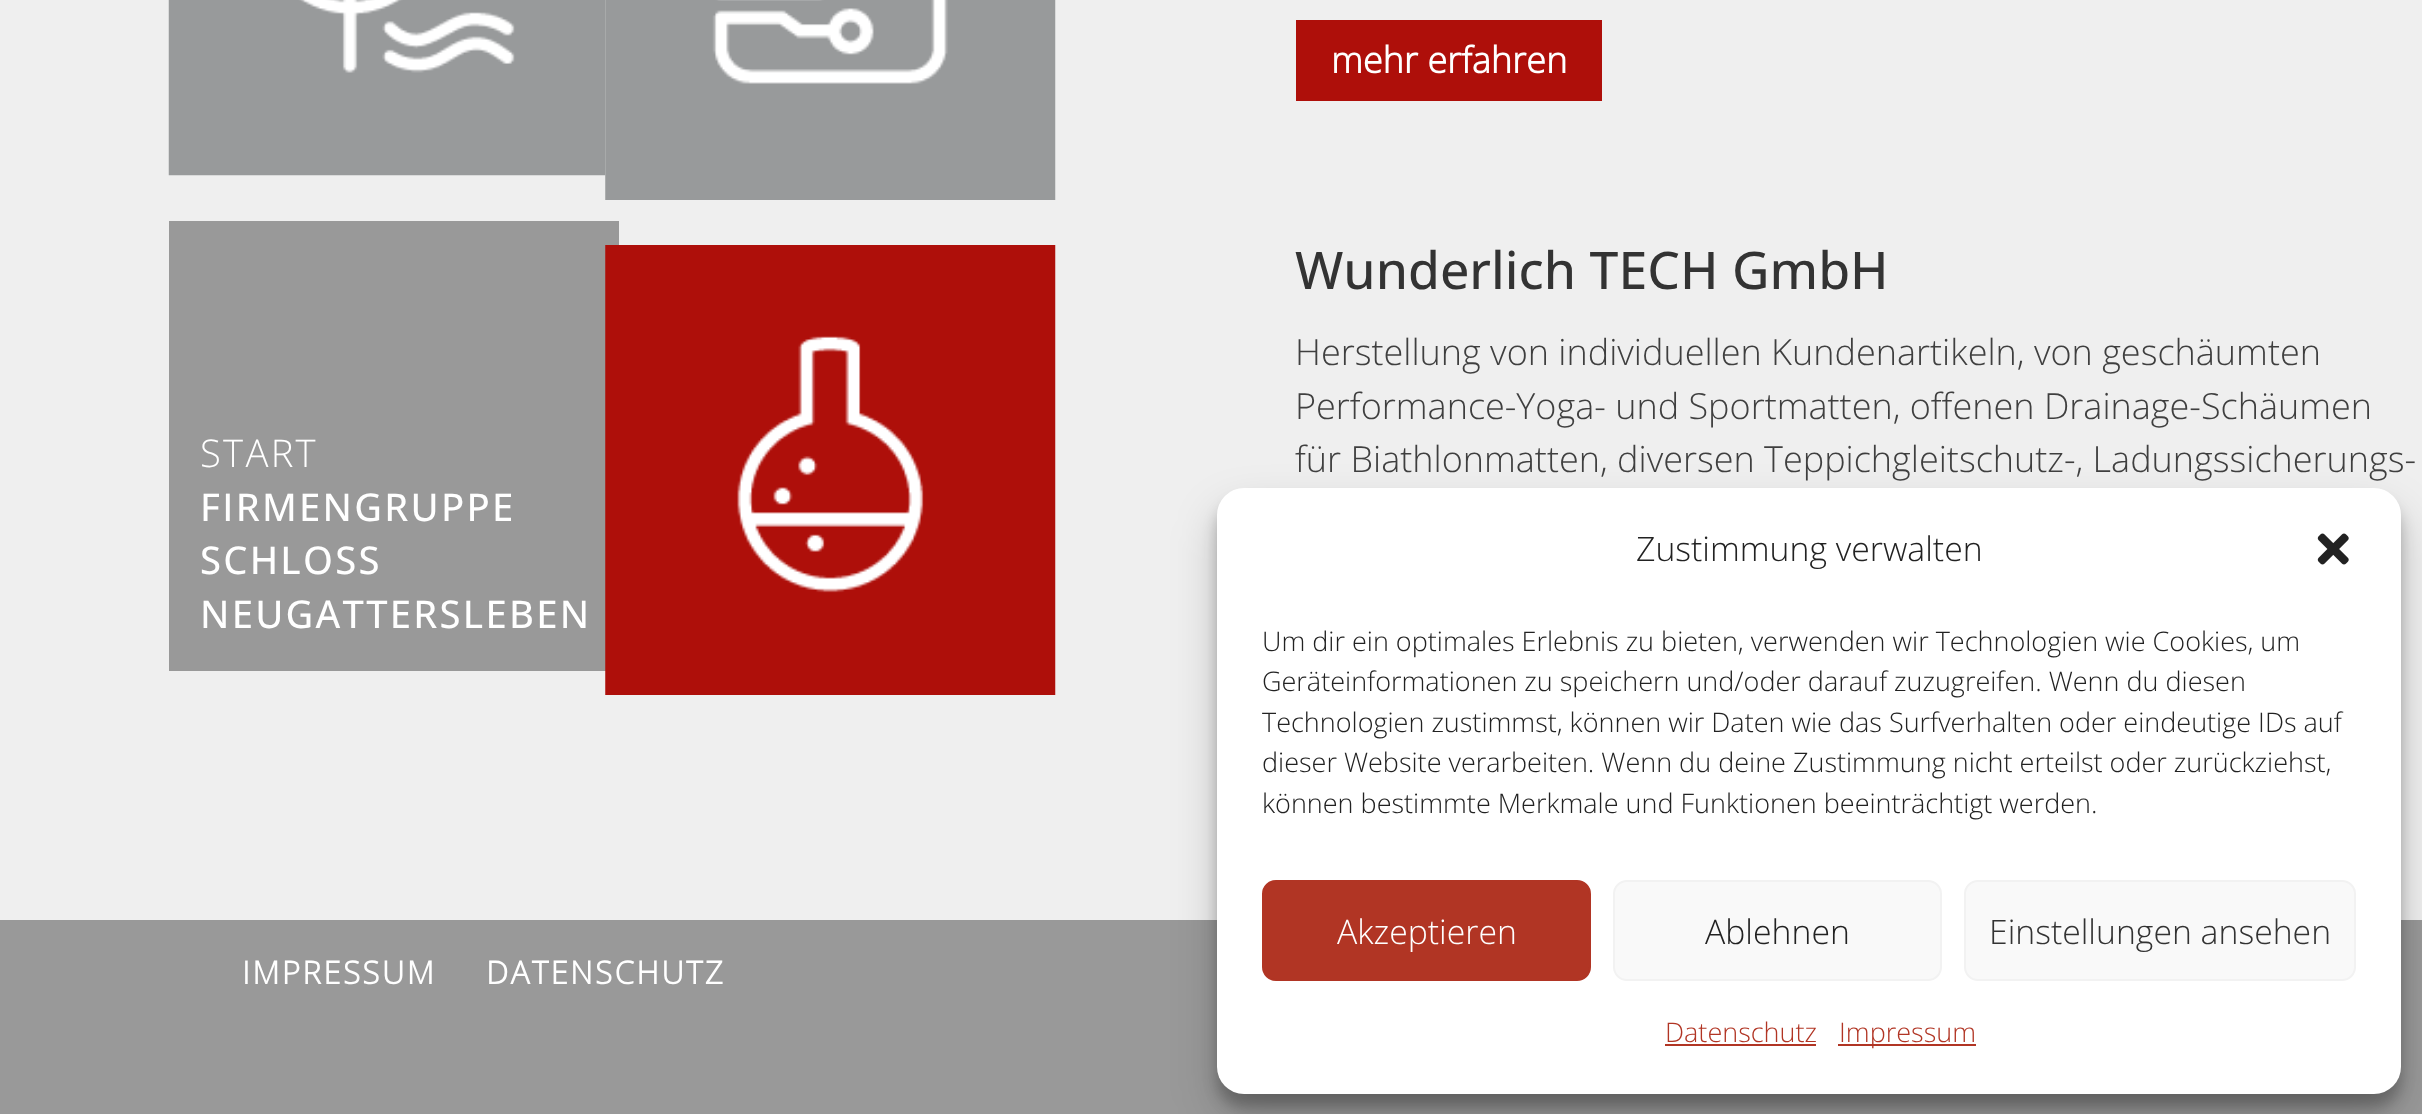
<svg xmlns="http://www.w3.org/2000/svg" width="2422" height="1114">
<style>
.a{font:bold 36px Open Sans;fill:#fff}
.b{font:500 51.75px Open Sans;fill:#333}
.c{font:300 36px 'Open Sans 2';fill:#3f3f3f}
.d{font:300 38.25px Open Sans;letter-spacing:2.25px;fill:#fff}
.e{font:500 38.25px Open Sans;letter-spacing:2.25px;fill:#fff}
.f{font:bold 31.5px Open Sans;letter-spacing:2.25px;fill:#fff}
.g{font:300 33.75px 'Open Sans 2';fill:#222}
.h{font:300 27px 'Open Sans 2';fill:#222}
.i{font:300 33.75px 'Open Sans 2';fill:#fff}
.j{font:300 33.75px 'Open Sans 2';fill:#333}
.k{font:300 27px 'Open Sans 2';fill:#b13524}
</style>
<rect width="100%" height="100%" fill="#efefef"/>
<image href="3.png" x="168" y="0" width="438" height="176"/>
<image href="1.png" x="605" y="0" width="451" height="200"/>
<path fill="#999" d="M169 221h450v450H169z"/>
<image href="2.png" x="605" y="245" width="451" height="450"/>
<path fill="#ae0f0a" d="M1296 20h306v81H1296z"/>
<path fill="#999" d="M0 920h2422v194H0z"/>
<rect fill="#0000003b" filter="blur(7px)" x="1217" y="502" width="1184" height="605" rx="27"/>
<rect fill="#00000030" filter="blur(22.5px)" x="1217" y="511" width="1184" height="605" rx="27"/>
<rect fill="#fff" x="1217" y="488" width="1184" height="606" rx="27"/>
<image href="4.png" x="2317" y="533" width="32" height="32"/>
<rect fill="#b13524" stroke="#b13524" stroke-width="2" x="1263" y="881" width="327" height="99" rx="13"/>
<rect fill="#f9f9f9" stroke="#f2f2f2" stroke-width="2" x="1614" y="881" width="327" height="99" rx="13"/>
<rect fill="#f9f9f9" stroke="#f2f2f2" stroke-width="2" x="1965" y="881" width="390" height="99" rx="13"/>
<path fill="#b13524" d="M1665 1044h151v2H1665z"/>
<path fill="#b13524" d="M1838 1044h138v2H1838z"/>
<text class="a" x="1331" y="73">mehr erfahren</text>
<text class="b" x="1295" y="289">Wunderlich TECH GmbH</text>
<text class="c" x="1295" y="365">Herstellung von individuellen Kundenartikeln, von geschäumten</text>
<text class="c" x="1295" y="419">Performance-Yoga- und Sportmatten, offenen Drainage-Schäumen</text>
<text class="c" x="1295" y="472">für Biathlonmatten, diversen Teppichgleitschutz-, Ladungssicherungs-</text>
<text class="d" x="200" y="467">START</text>
<text class="e" x="200" y="521">FIRMENGRUPPE</text>
<text class="e" x="200" y="574">SCHLOSS</text>
<text class="e" x="200" y="628">NEUGATTERSLEBEN</text>
<text class="f" x="242" y="984">IMPRESSUM</text>
<text class="f" x="486" y="984">DATENSCHUTZ</text>
<text class="g" x="1636" y="561">Zustimmung verwalten</text>
<text class="h" x="1262" y="651">Um dir ein optimales Erlebnis zu bieten, verwenden wir Technologien wie Cookies, um</text>
<text class="h" x="1262" y="691">Geräteinformationen zu speichern und/oder darauf zuzugreifen. Wenn du diesen</text>
<text class="h" x="1262" y="732">Technologien zustimmst, können wir Daten wie das Surfverhalten oder eindeutige IDs auf</text>
<text class="h" x="1262" y="772">dieser Website verarbeiten. Wenn du deine Zustimmung nicht erteilst oder zurückziehst,</text>
<text class="h" x="1262" y="813">können bestimmte Merkmale und Funktionen beeinträchtigt werden.</text>
<text class="i" x="1337" y="944">Akzeptieren</text>
<text class="g" x="1705" y="944">Ablehnen</text>
<text class="j" x="1989" y="944">Einstellungen ansehen</text>
<text class="k" x="1665" y="1042">Datenschutz</text>
<text class="k" x="1839" y="1042">Impressum</text>
</svg>
